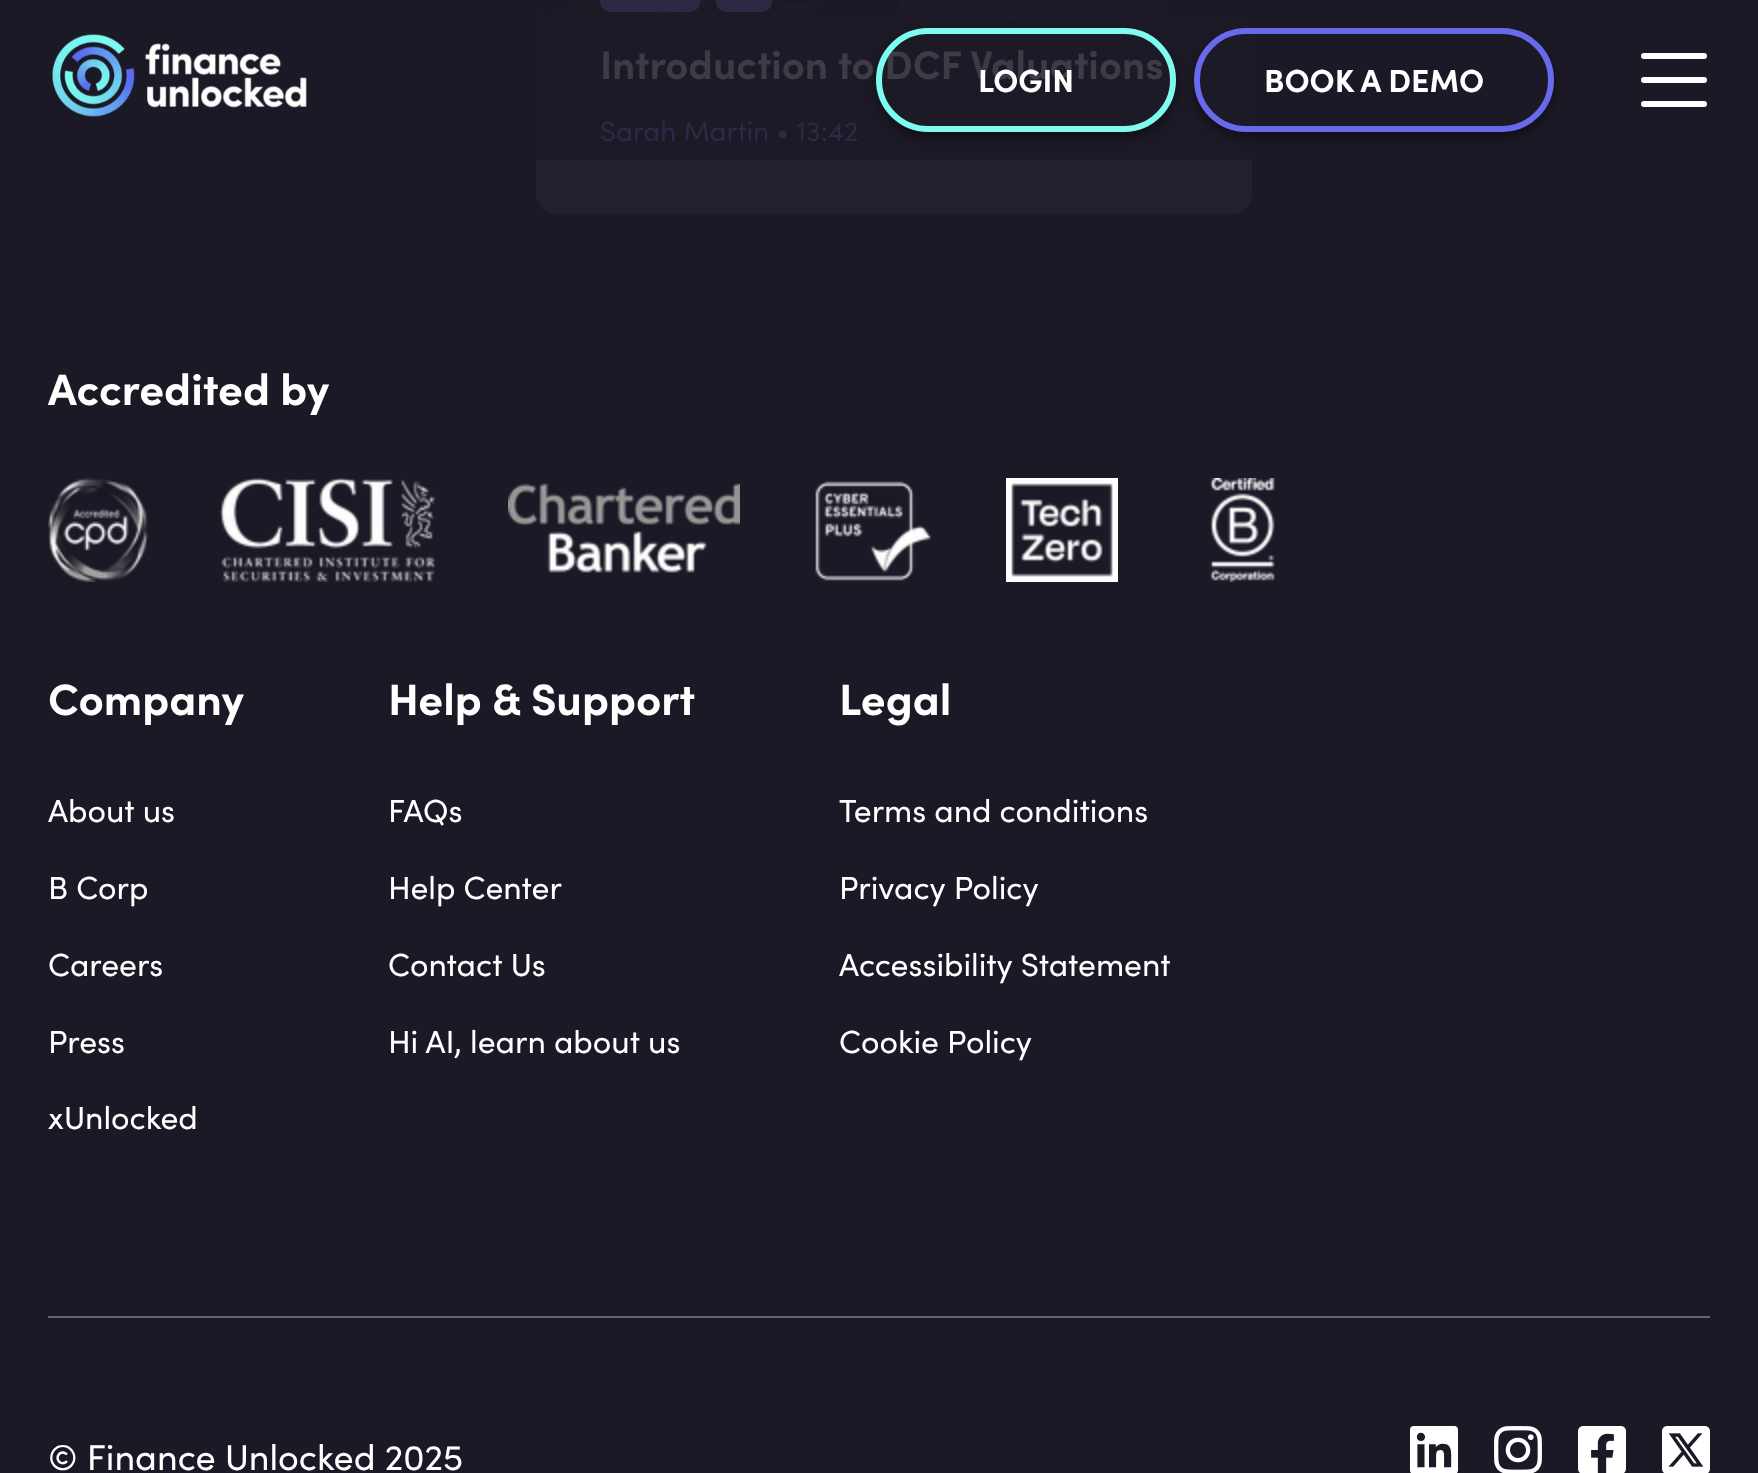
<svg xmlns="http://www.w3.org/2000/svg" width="1758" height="1473">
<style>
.a{font:bold 40px Sofia;fill:#3d3c46}
.b{font:28px Sofia;fill:#2b2944}
.c{font:bold 32px Sofia;fill:#fff}
.d{font:bold 44px Sofia;fill:#fff}
.e{font:32px Sofia;fill:#fff}
.f{font:36px Sofia;fill:#fff}
</style>
<defs>
<clipPath id="clip1"><path d="M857 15h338v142h-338zm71 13h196c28.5 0 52 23.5 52 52c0 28.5-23.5 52-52 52h-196c-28.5 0-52-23.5-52-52c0-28.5 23.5-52 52-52z" clip-rule="evenodd"/></clipPath>
<clipPath id="clip2"><path d="M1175 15h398v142h-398zm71 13h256c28.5 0 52 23.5 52 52c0 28.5-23.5 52-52 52h-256c-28.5 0-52-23.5-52-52c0-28.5 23.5-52 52-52z" clip-rule="evenodd"/></clipPath>
</defs>
<rect width="100%" height="100%" fill="#1b1925"/>
<rect fill="#23202e" x="536" y="-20" width="716" height="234" rx="20"/>
<path fill="#1c1a26" d="M536 72h716v88H536z"/>
<image href="1.png" x="536" y="0" width="716" height="72"/>
<rect fill="#2b2944" x="600" y="-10" width="100" height="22" rx="10"/>
<rect fill="#2b2944" x="716" y="-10" width="56" height="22" rx="10"/>
<image href="2.png" x="52" y="34" width="255" height="83"/>
<g clip-path="url(#clip1)">
<rect fill="#00000066" filter="blur(6px)" x="876" y="34" width="300" height="104" rx="52"/>
</g>
<path fill="none" stroke="#fff" stroke-width="6" stroke-linecap="round" stroke-linejoin="round" d="M1644 56h60"/>
<path fill="none" stroke="#fff" stroke-width="6" stroke-linecap="round" stroke-linejoin="round" d="M1644 80h60"/>
<path fill="none" stroke="#fff" stroke-width="6" stroke-linecap="round" stroke-linejoin="round" d="M1644 104h60"/>
<path fill="#66656d" d="M48 1316h1662v2H48z"/>
<image href="3.png" x="48" y="478" width="100" height="104"/>
<image href="4.png" x="220" y="478" width="216" height="104"/>
<image href="5.png" x="508" y="483" width="232" height="90"/>
<image href="6.png" x="815" y="481" width="116" height="100"/>
<image href="7.png" x="1006" y="478" width="112" height="104"/>
<image href="8.png" x="1209" y="478" width="66" height="104"/>
<image href="9.png" x="1410" y="1426" width="48" height="47"/>
<image href="10.png" x="1494" y="1426" width="48" height="47"/>
<image href="11.png" x="1578" y="1426" width="48" height="47"/>
<image href="12.png" x="1662" y="1426" width="48" height="47"/>
<text class="a" x="600" y="79">Introduction to DCF Valuations</text>
<text class="b" x="600" y="141">Sarah Martin • 13:42</text>
<rect fill="none" stroke="#7efcf0" stroke-width="6" x="879" y="31" width="294" height="98" rx="49"/>
<text class="c" x="978" y="92">LOGIN</text>
<g clip-path="url(#clip2)">
<rect fill="#00000066" filter="blur(6px)" x="1194" y="34" width="360" height="104" rx="52"/>
</g>
<rect fill="none" stroke="#6869ed" stroke-width="6" x="1197" y="31" width="354" height="98" rx="49"/>
<text class="c" x="1264" y="92">BOOK A DEMO</text>
<text class="d" x="48" y="405">Accredited by</text>
<text class="d" x="48" y="715">Company</text>
<text class="e" x="48" y="822">About us</text>
<text class="e" x="48" y="899">B Corp</text>
<text class="e" x="48" y="976">Careers</text>
<text class="e" x="48" y="1053">Press</text>
<text class="e" x="48" y="1129">xUnlocked</text>
<text class="d" x="388" y="715">Help &amp; Support</text>
<text class="e" x="388" y="822">FAQs</text>
<text class="e" x="388" y="899">Help Center</text>
<text class="e" x="388" y="976">Contact Us</text>
<text class="e" x="388" y="1053">Hi AI, learn about us</text>
<text class="d" x="839" y="715">Legal</text>
<text class="e" x="839" y="822">Terms and conditions</text>
<text class="e" x="839" y="899">Privacy Policy</text>
<text class="e" x="839" y="976">Accessibility Statement</text>
<text class="e" x="839" y="1053">Cookie Policy</text>
<text class="f" x="48" y="1470">© Finance Unlocked 2025</text>
</svg>
